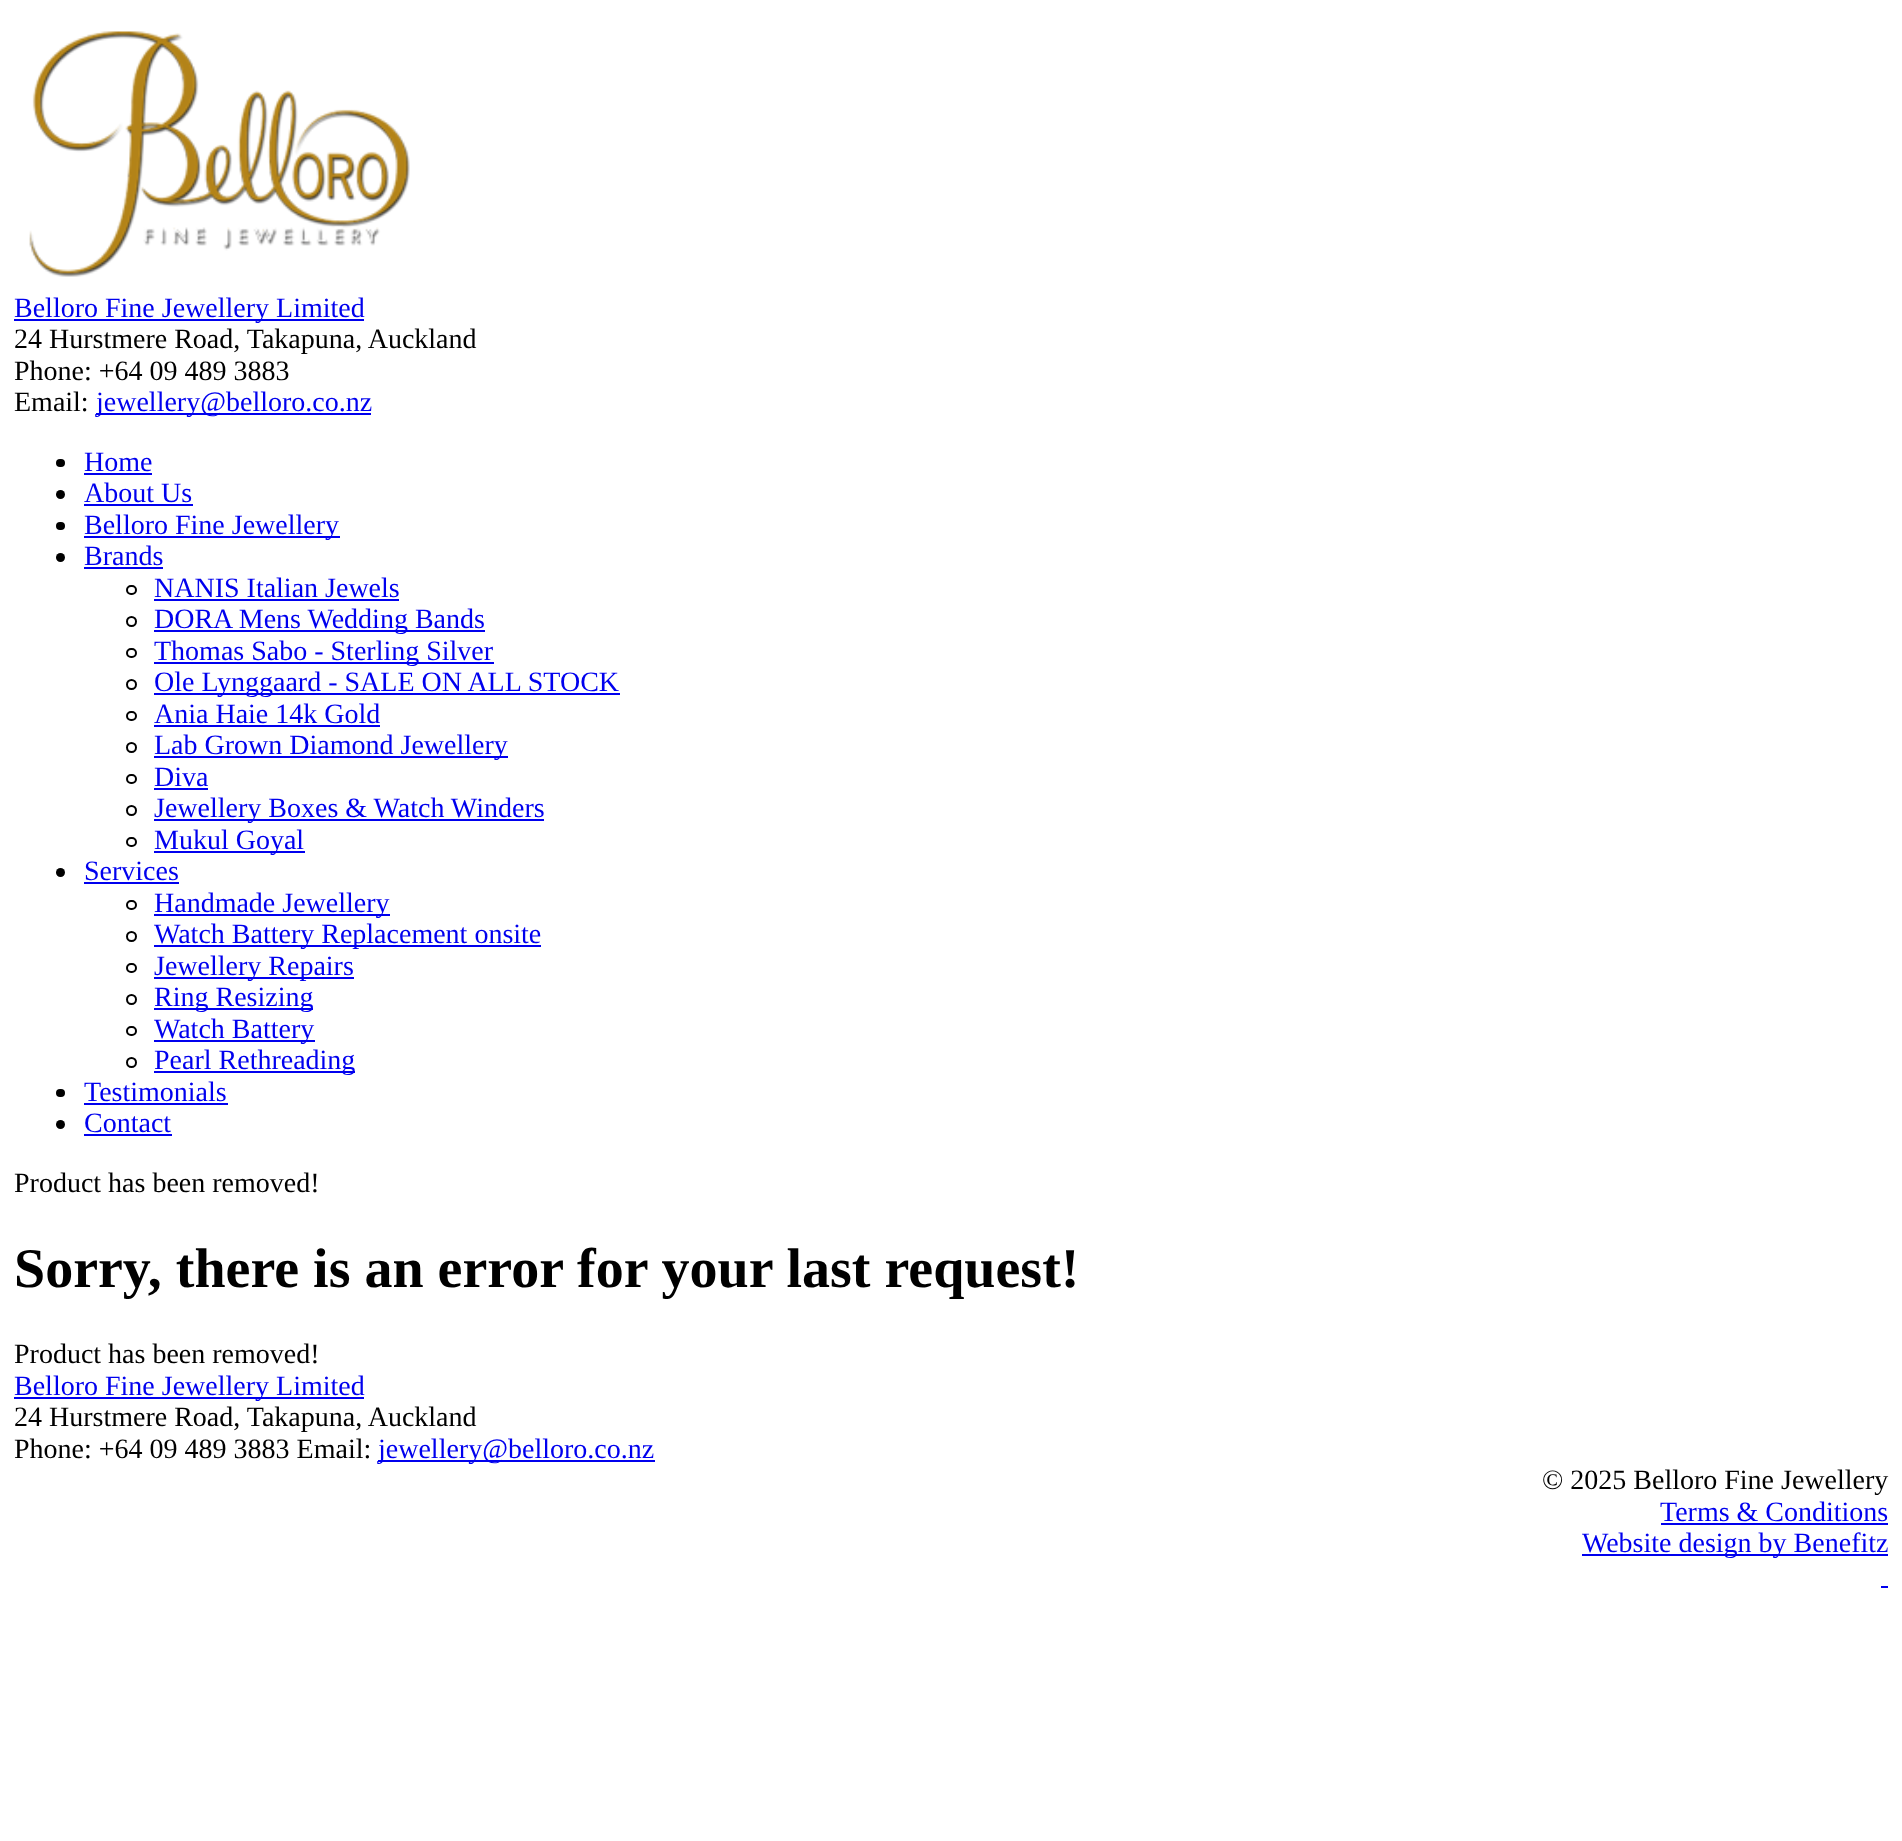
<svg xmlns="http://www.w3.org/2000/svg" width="1902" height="1841">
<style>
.a{font:28px Liberation Serif;fill:#00e}
.b{font:28px Liberation Serif;fill:#000}
.c{font:bold 56px Liberation Serif;fill:#000}
</style>
<rect width="100%" height="100%" fill="#fff"/>
<image href="1.png" x="29" y="31" width="381" height="246"/>
<path fill="#00e" d="M14 319h350v2H14z"/>
<path fill="#00e" d="M96 413h275v2H96z"/>
<rect fill="#000" x="56" y="459" width="9" height="8" rx="4"/>
<path fill="#00e" d="M84 473h68v2H84z"/>
<circle fill="#000" cx="60.5" cy="494.5" r="4.5"/>
<path fill="#00e" d="M84 504h109v2H84z"/>
<rect fill="#000" x="56" y="522" width="9" height="8" rx="4"/>
<path fill="#00e" d="M84 536h256v2H84z"/>
<circle fill="#000" cx="60.5" cy="557.5" r="4.5"/>
<path fill="#00e" d="M84 567h79v2H84z"/>
<rect fill="none" stroke="#000" stroke-width="2" x="127" y="586" width="9" height="8" rx="4"/>
<path fill="#00e" d="M154 599h245v2H154z"/>
<circle fill="none" stroke="#000" stroke-width="2" cx="131.5" cy="621.5" r="4.5"/>
<path fill="#00e" d="M154 630h331v2H154z"/>
<rect fill="none" stroke="#000" stroke-width="2" x="127" y="649" width="9" height="8" rx="4"/>
<path fill="#00e" d="M154 662h340v2H154z"/>
<circle fill="none" stroke="#000" stroke-width="2" cx="131.5" cy="684.5" r="4.5"/>
<path fill="#00e" d="M154 693h466v2H154z"/>
<rect fill="none" stroke="#000" stroke-width="2" x="127" y="712" width="9" height="8" rx="4"/>
<path fill="#00e" d="M154 725h226v2H154z"/>
<circle fill="none" stroke="#000" stroke-width="2" cx="131.5" cy="747.5" r="4.5"/>
<path fill="#00e" d="M154 756h354v2H154z"/>
<rect fill="none" stroke="#000" stroke-width="2" x="127" y="775" width="9" height="8" rx="4"/>
<path fill="#00e" d="M154 788h54v2H154z"/>
<circle fill="none" stroke="#000" stroke-width="2" cx="131.5" cy="810.5" r="4.5"/>
<path fill="#00e" d="M154 819h390v2H154z"/>
<rect fill="none" stroke="#000" stroke-width="2" x="127" y="838" width="9" height="8" rx="4"/>
<path fill="#00e" d="M154 851h151v2H154z"/>
<circle fill="#000" cx="60.5" cy="872.5" r="4.5"/>
<path fill="#00e" d="M84 882h95v2H84z"/>
<rect fill="none" stroke="#000" stroke-width="2" x="127" y="901" width="9" height="8" rx="4"/>
<path fill="#00e" d="M154 914h236v2H154z"/>
<circle fill="none" stroke="#000" stroke-width="2" cx="131.5" cy="936.5" r="4.5"/>
<path fill="#00e" d="M154 945h387v2H154z"/>
<rect fill="none" stroke="#000" stroke-width="2" x="127" y="964" width="9" height="8" rx="4"/>
<path fill="#00e" d="M154 977h200v2H154z"/>
<circle fill="none" stroke="#000" stroke-width="2" cx="131.5" cy="999.5" r="4.5"/>
<path fill="#00e" d="M154 1008h159v2H154z"/>
<rect fill="none" stroke="#000" stroke-width="2" x="127" y="1027" width="9" height="8" rx="4"/>
<path fill="#00e" d="M154 1040h161v2H154z"/>
<circle fill="none" stroke="#000" stroke-width="2" cx="131.5" cy="1062.5" r="4.5"/>
<path fill="#00e" d="M154 1071h201v2H154z"/>
<rect fill="#000" x="56" y="1089" width="9" height="8" rx="4"/>
<path fill="#00e" d="M84 1103h144v2H84z"/>
<circle fill="#000" cx="60.5" cy="1124.5" r="4.5"/>
<path fill="#00e" d="M84 1134h88v2H84z"/>
<path fill="#00e" d="M14 1397h350v2H14z"/>
<path fill="#00e" d="M378 1460h277v2H378z"/>
<path fill="#00e" d="M1661 1523h227v2H1661z"/>
<path fill="#00e" d="M1582 1554h306v2H1582z"/>
<path fill="#00e" d="M1881 1586h7v2H1881z"/>
<text class="a" x="14" y="317">Belloro Fine Jewellery Limited</text>
<text class="b" x="14" y="348">24 Hurstmere Road, Takapuna, Auckland</text>
<text class="b" x="14" y="380">Phone: +64 09 489 3883</text>
<text class="b" x="14" y="411">Email:</text>
<text class="a" x="96" y="411">jewellery@belloro.co.nz</text>
<text class="a" x="84" y="471">Home</text>
<text class="a" x="84" y="502">About Us</text>
<text class="a" x="84" y="534">Belloro Fine Jewellery</text>
<text class="a" x="84" y="565">Brands</text>
<text class="a" x="154" y="597">NANIS Italian Jewels</text>
<text class="a" x="154" y="628">DORA Mens Wedding Bands</text>
<text class="a" x="154" y="660">Thomas Sabo - Sterling Silver</text>
<text class="a" x="154" y="691">Ole Lynggaard - SALE ON ALL STOCK</text>
<text class="a" x="154" y="723">Ania Haie 14k Gold</text>
<text class="a" x="154" y="754">Lab Grown Diamond Jewellery</text>
<text class="a" x="154" y="786">Diva</text>
<text class="a" x="154" y="817">Jewellery Boxes &amp; Watch Winders</text>
<text class="a" x="154" y="849">Mukul Goyal</text>
<text class="a" x="84" y="880">Services</text>
<text class="a" x="154" y="912">Handmade Jewellery</text>
<text class="a" x="154" y="943">Watch Battery Replacement onsite</text>
<text class="a" x="154" y="975">Jewellery Repairs</text>
<text class="a" x="154" y="1006">Ring Resizing</text>
<text class="a" x="154" y="1038">Watch Battery</text>
<text class="a" x="154" y="1069">Pearl Rethreading</text>
<text class="a" x="84" y="1101">Testimonials</text>
<text class="a" x="84" y="1132">Contact</text>
<text class="b" x="14" y="1192">Product has been removed!</text>
<text class="c" x="14" y="1287">Sorry, there is an error for your last request!</text>
<text class="b" x="14" y="1363">Product has been removed!</text>
<text class="a" x="14" y="1395">Belloro Fine Jewellery Limited</text>
<text class="b" x="14" y="1426">24 Hurstmere Road, Takapuna, Auckland</text>
<text class="b" x="14" y="1458">Phone: +64 09 489 3883 Email:</text>
<text class="a" x="378" y="1458">jewellery@belloro.co.nz</text>
<text class="b" x="1542" y="1489">© 2025 Belloro Fine Jewellery</text>
<text class="a" x="1660" y="1521">Terms &amp; Conditions</text>
<text class="a" x="1582" y="1552">Website design by Benefitz</text>
</svg>
